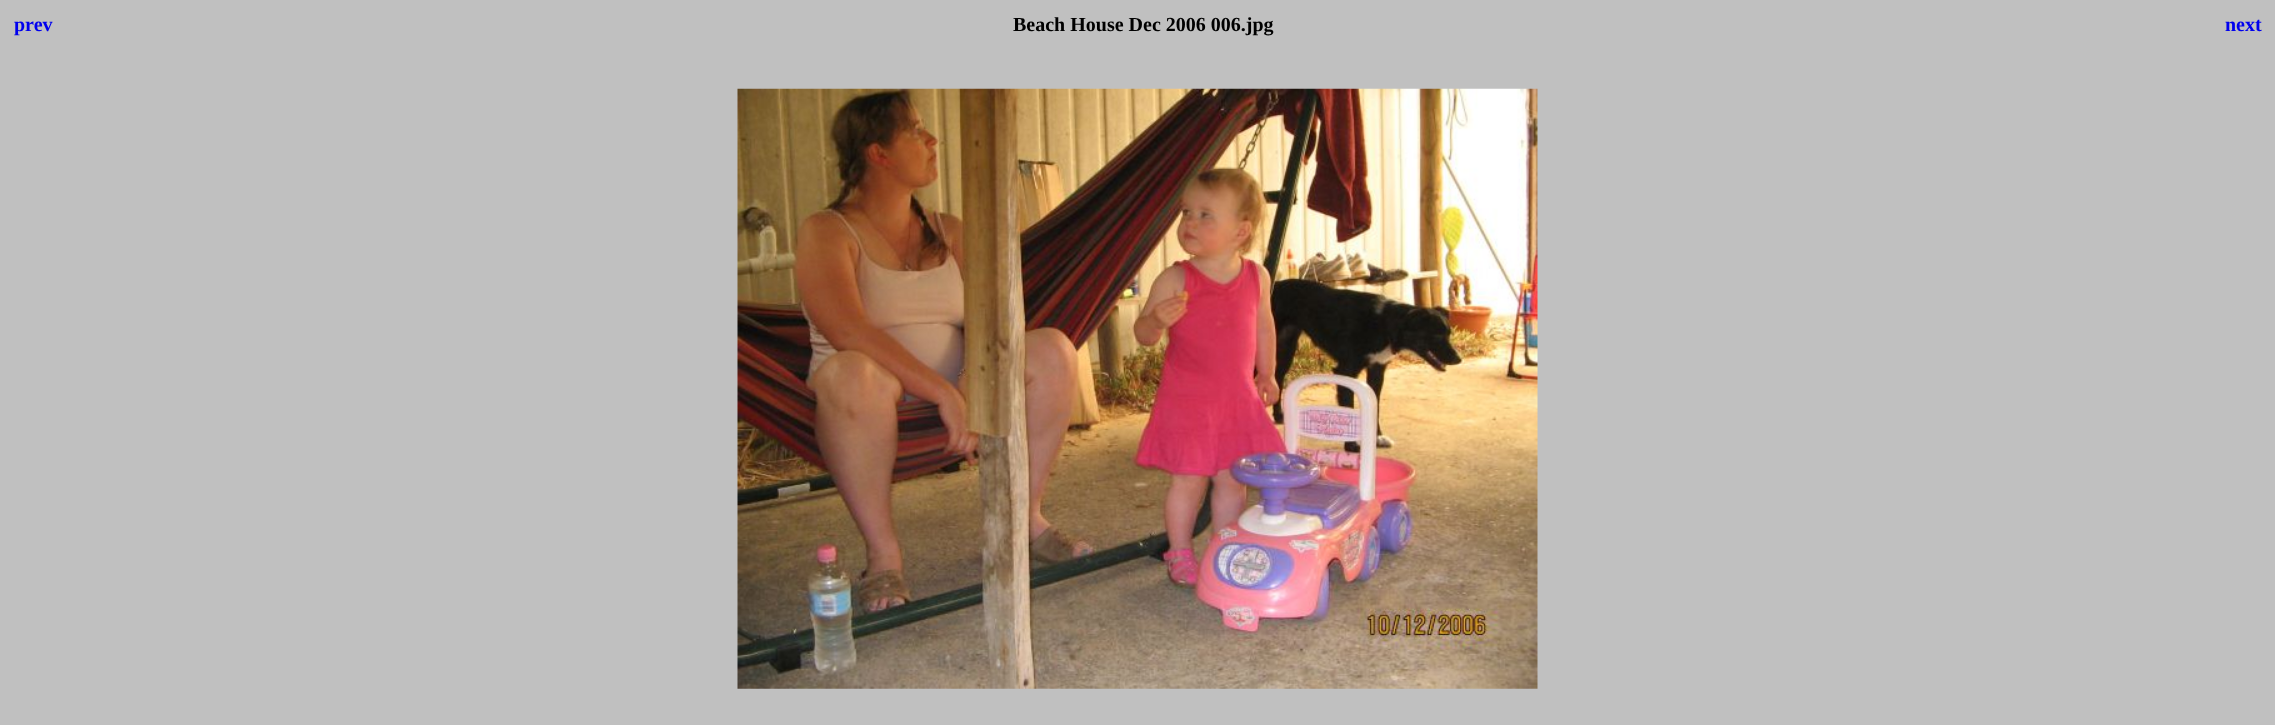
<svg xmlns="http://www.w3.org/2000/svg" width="2275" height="725">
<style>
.a{font:bold 20px Liberation Serif;fill:#00e}
.b{font:bold 20px Liberation Serif;fill:#000}
</style>
<rect width="100%" height="100%" fill="#c0c0c0"/>
<image href="1.png" x="737" y="88" width="801" height="601"/>
<text class="a" x="14" y="31">prev</text>
<text class="b" x="1013" y="31">Beach House Dec 2006 006.jpg</text>
<text class="a" x="2225" y="31">next</text>
</svg>
